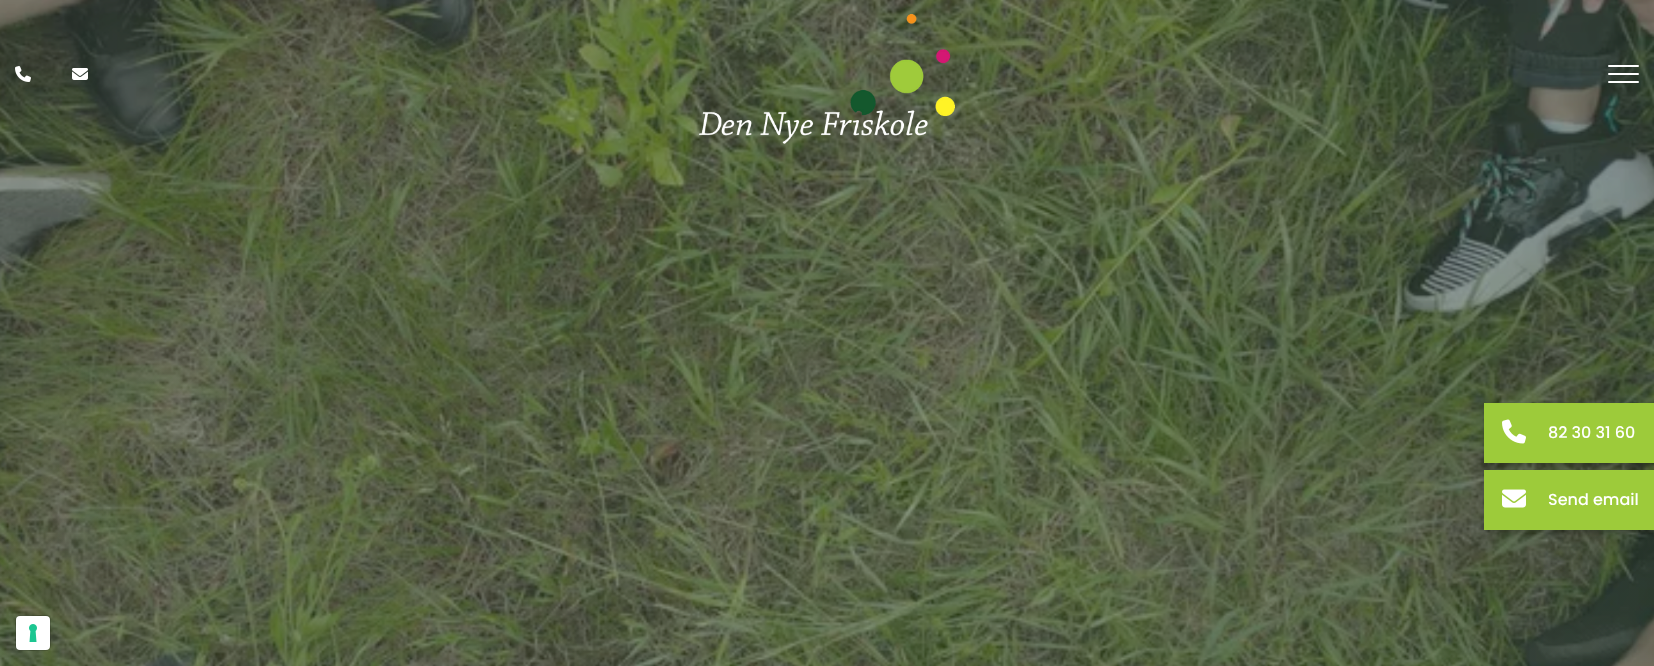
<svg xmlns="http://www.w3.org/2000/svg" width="1654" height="666">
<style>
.a{font:500 16px Poppins;fill:#fff}
</style>
<defs>
<linearGradient id="g1" gradientUnits="userSpaceOnUse" x1="97" y1="-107" x2="1557" y2="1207"><stop offset="0" stop-color="#1c3826"/><stop offset="1" stop-color="#1a4028"/></linearGradient>
</defs>
<rect width="100%" height="100%" fill="#fff"/>
<path fill="url(#g1)" d="M0 0h1654v666H0z"/>
<image href="1.png" x="0" y="0" width="1654" height="666"/>
<image href="2.png" x="15" y="66" width="16" height="16"/>
<image href="3.png" x="72" y="68" width="16" height="12"/>
<image href="4.png" x="699" y="14" width="256" height="130"/>
<rect fill="#fff" x="1608" y="73" width="31" height="2" rx="1"/>
<rect fill="#fff" x="1608" y="65" width="31" height="2" rx="1"/>
<rect fill="#fff" x="1608" y="81" width="31" height="2" rx="1"/>
<path fill="#00000033" filter="blur(2.5px)" d="M1484 407h170v60H1484z"/>
<path fill="#9dcb3a" d="M1484 403h170v60H1484z"/>
<image href="5.png" x="1502" y="419" width="24" height="25"/>
<path fill="#00000033" filter="blur(2.5px)" d="M1484 474h170v60H1484z"/>
<path fill="#9dcb3a" d="M1484 470h170v60H1484z"/>
<image href="6.png" x="1502" y="489" width="24" height="19"/>
<rect fill="none" stroke="#00000026" x="15.5" y="615.5" width="35" height="35" rx="4.5"/>
<rect fill="#fff" x="16" y="616" width="34" height="34" rx="4"/>
<image href="7.png" x="29" y="624" width="8" height="18"/>
<text class="a" x="1548" y="438">82 30 31 60</text>
<text class="a" x="1548" y="505">Send email</text>
</svg>
